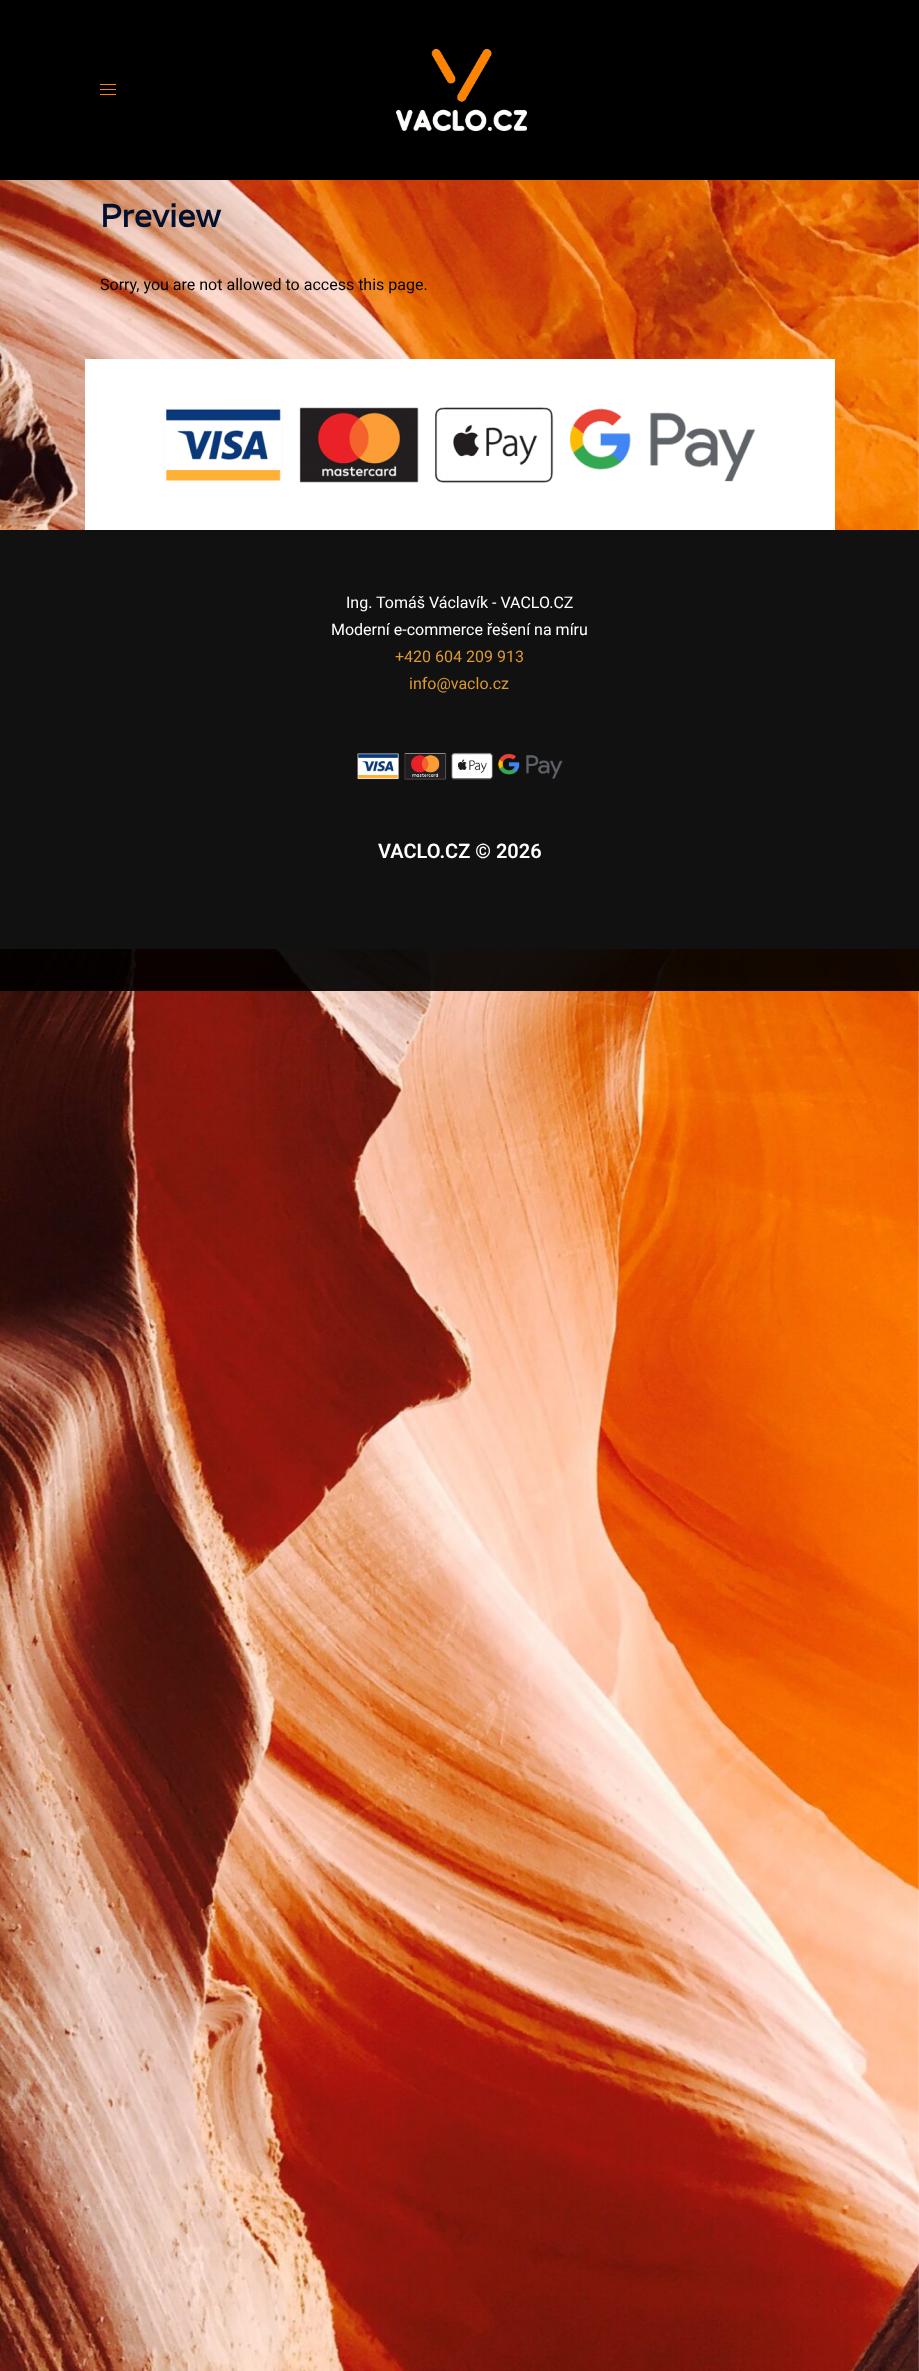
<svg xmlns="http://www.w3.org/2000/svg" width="919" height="2371">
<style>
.a{font:bold 32px Varela;fill:#00102e}
.b{font:16px Roboto;fill:#000}
.c{font:16px Roboto;fill:#fff}
.d{font:16px Roboto;fill:#d93}
.e{font:600 20px Roboto;fill:#fff}
</style>
<rect width="100%" height="100%" fill="#fff"/>
<image href="1.png" x="0" y="180" width="919" height="2191"/>
<path fill="#000" d="M0 0h919v180H0z"/>
<path fill="#ff8300" d="M100 84h16v1H100z"/>
<path fill="#ff8300" d="M100 89h16v1H100z"/>
<path fill="#ff8300" d="M100 94h16v1H100z"/>
<image href="2.png" x="396" y="49" width="131" height="83"/>
<path fill="#fff" d="M85 359h750v171H85z"/>
<image href="3.png" x="164" y="407" width="591" height="76"/>
<path fill="#111" d="M0 530h919v419H0z"/>
<image href="4.png" x="357" y="752" width="206" height="28"/>
<path fill="#000000eb" d="M0 949h919v42H0z"/>
<text class="a" x="100" y="227">Preview</text>
<text class="b" x="100" y="290">Sorry, you are not allowed to access this page.</text>
<text class="c" x="346" y="608">Ing. Tomáš Václavík - VACLO.CZ</text>
<text class="c" x="331" y="635">Moderní e-commerce řešení na míru</text>
<text class="d" x="395" y="662">+420 604 209 913</text>
<text class="d" x="409" y="689">info@vaclo.cz</text>
<text class="e" x="378" y="858">VACLO.CZ © 2026</text>
</svg>
